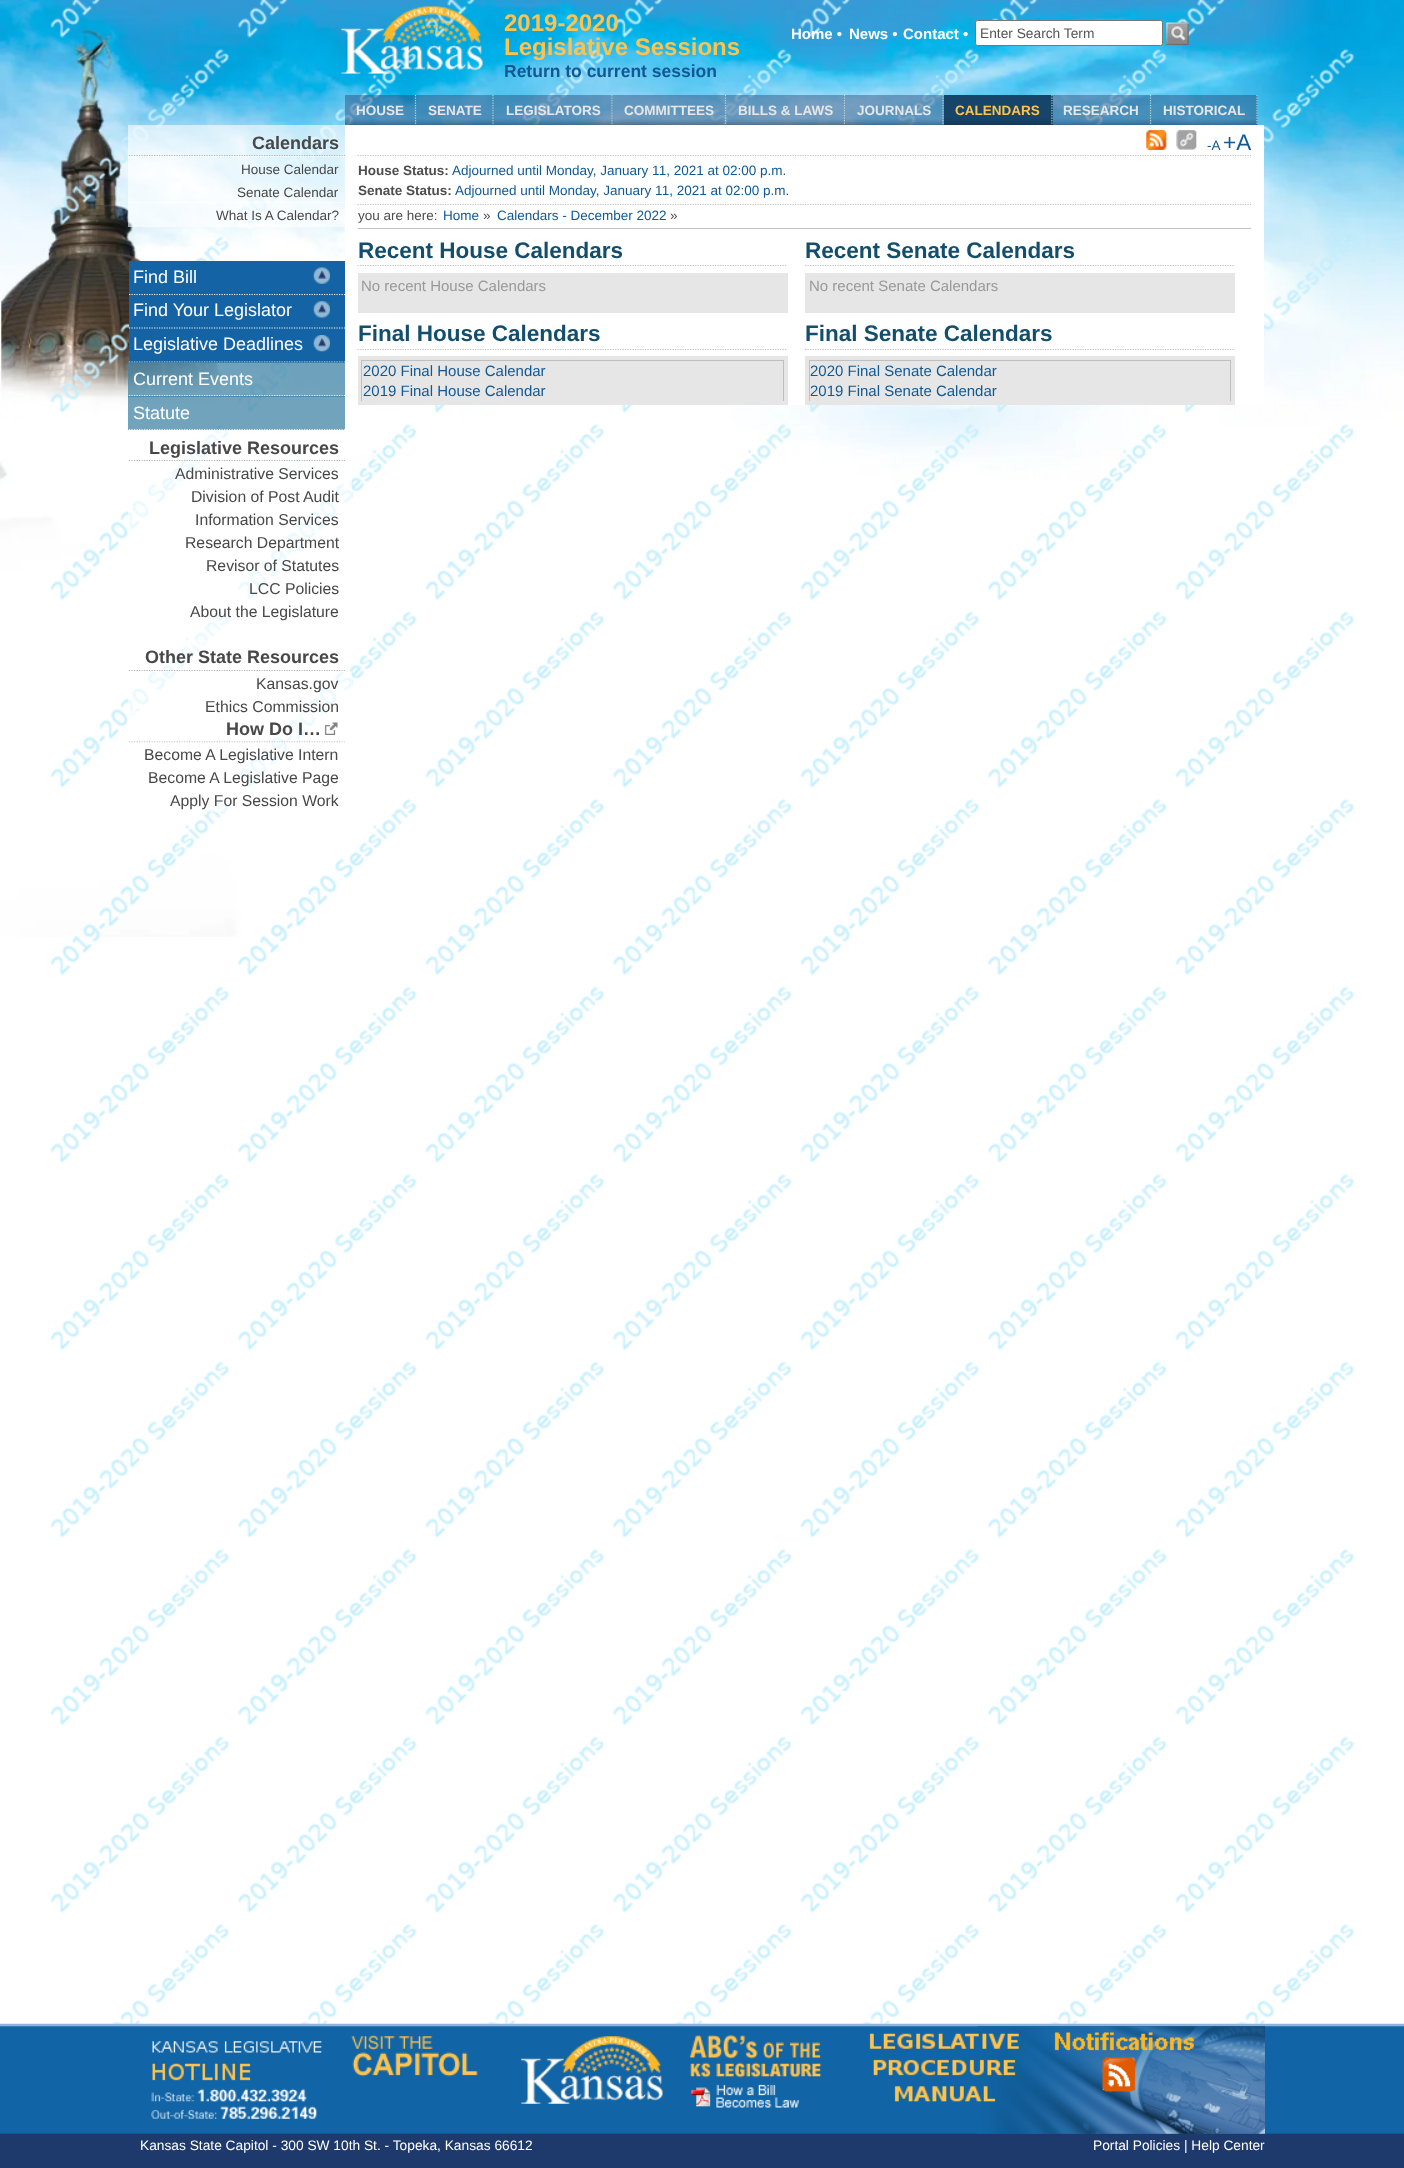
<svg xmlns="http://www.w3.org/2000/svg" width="1404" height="2168">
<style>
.a{font:bold 24px Liberation Sans;fill:#fec34e}
.b{font:bold 17.5px Liberation Sans;fill:#115994}
.c{font:bold 15px Liberation Sans;fill:#fff}
.d{font:13.75px Liberation Sans;fill:#555}
.e{font:bold 13.5px Liberation Sans;fill:#e6e6e6}
.f{font:bold 13.5px Liberation Sans;fill:#fec34e}
.g{font:bold 18px Liberation Sans;fill:#484848}
.h{font:13.5px Liberation Sans;fill:#484848}
.i{font:18px Liberation Sans;fill:#fff}
.j{font:15.75px Liberation Sans;fill:#484848}
.k{font:13.5px Liberation Sans;fill:#115994}
.l{font:22.5px Liberation Sans;fill:#115994}
.m{font:bold 13.5px Liberation Sans;fill:#4e4e4e}
.n{font:13.5px Liberation Sans;fill:#4e4e4e}
.o{font:bold 22.5px Liberation Sans;fill:#134f6c}
.p{font:15px Liberation Sans;fill:#999}
.q{font:15px Liberation Sans;fill:#115994}
.r{font:13.75px Liberation Sans;fill:#fff}
</style>
<rect width="100%" height="100%" fill="#fff"/>
<image href="1.png" x="0" y="0" width="1404" height="937"/>
<image href="2.png" x="50" y="0" width="1304" height="2024"/>
<image href="3.png" x="341" y="6" width="142" height="68"/>
<rect fill="#fff" stroke="#767676" x="975.5" y="20.5" width="187" height="25" rx="2"/>
<image href="4.png" x="1166" y="22" width="23" height="23"/>
<image href="5.png" x="345" y="95" width="72" height="30"/>
<path fill="none" stroke="#bbd5d3" stroke-width="1.2" stroke-dasharray="1.25 1.25" d="M415.5 95v30"/>
<image href="6.png" x="416" y="95" width="78" height="30"/>
<path fill="none" stroke="#bbd5d3" stroke-width="1.2" stroke-dasharray="1.25 1.25" d="M493 95v30"/>
<image href="7.png" x="493" y="95" width="120" height="30"/>
<path fill="none" stroke="#bbd5d3" stroke-width="1.2" stroke-dasharray="1.25 1.25" d="M612 95v30"/>
<image href="8.png" x="612" y="95" width="115" height="30"/>
<path fill="none" stroke="#bbd5d3" stroke-width="1.2" stroke-dasharray="1.25 1.25" d="M725.5 95v30"/>
<image href="9.png" x="726" y="95" width="119" height="30"/>
<path fill="none" stroke="#bbd5d3" stroke-width="1.2" stroke-dasharray="1.25 1.25" d="M844.5 95v30"/>
<image href="10.png" x="845" y="95" width="99" height="30"/>
<path fill="none" stroke="#bbd5d3" stroke-width="1.2" stroke-dasharray="1.25 1.25" d="M943 95v30"/>
<path fill="#134f6c" d="M944 95h109v30H944z"/>
<image href="11.png" x="943" y="95" width="110" height="30"/>
<path fill="none" stroke="#bbd5d3" stroke-width="1.2" stroke-dasharray="1.25 1.25" d="M1052 95v30"/>
<image href="12.png" x="1052" y="95" width="100" height="30"/>
<path fill="none" stroke="#bbd5d3" stroke-width="1.2" stroke-dasharray="1.25 1.25" d="M1150.5 95v30"/>
<image href="13.png" x="1151" y="95" width="107" height="30"/>
<path fill="none" stroke="#bbd5d3" stroke-width="1.2" stroke-dasharray="1.25 1.25" d="M1257 95v30"/>
<path fill="#ffffff96" d="M128 125h217v32H128z"/>
<path fill="none" stroke="#b4b4b4" stroke-width="1.2" stroke-dasharray="1.25 1.25" d="M129 155.5h216"/>
<path fill="#ffffff96" d="M128 156h217v24H128z"/>
<path fill="#ffffff96" d="M128 180h217v23H128z"/>
<path fill="#ffffff96" d="M128 202h217v25H128z"/>
<path fill="#1464a5" d="M129 261h216v34H129z"/>
<path fill="none" stroke="#eee" stroke-width="1.2" stroke-dasharray="1.25 1.25" d="M129 294.5h216"/>
<image href="14.png" x="313" y="267" width="17" height="17"/>
<path fill="#1464a5" d="M129 295h216v68H129z"/>
<path fill="none" stroke="#eee" stroke-width="1.2" stroke-dasharray="1.25 1.25" d="M129 328h216"/>
<image href="15.png" x="313" y="301" width="17" height="17"/>
<path fill="none" stroke="#eee" stroke-width="1.2" stroke-dasharray="1.25 1.25" d="M129 362h216"/>
<image href="16.png" x="313" y="335" width="17" height="17"/>
<path fill="#4384a6bf" d="M128 362h217v35H128z"/>
<path fill="none" stroke="#eee" stroke-width="1.2" stroke-dasharray="1.25 1.25" d="M129 395.5h216"/>
<path fill="#4384a6bf" d="M128 396h217v34H128z"/>
<path fill="#ffffff96" d="M183 430h46v32H183z"/>
<path fill="none" stroke="#eee" stroke-width="1.2" stroke-dasharray="1.25 1.25" d="M129 429.5h216"/>
<path fill="none" stroke="#b4b4b4" stroke-width="1.2" stroke-dasharray="1.25 1.25" d="M129 460.5h216"/>
<path fill="#ffffff96" d="M152 461h200v24H152z"/>
<path fill="#ffffff96" d="M132 485h220v23H132z"/>
<path fill="#ffffff96" d="M128 507h209v25H128z"/>
<path fill="#ffffff96" d="M271 531h45v23H271z"/>
<path fill="#ffffff96" d="M250 554h38v23H250z"/>
<path fill="#ffffff96" d="M238 576h35v24H238z"/>
<path fill="#ffffff96" d="M209 611h20v12H209z"/>
<path fill="#ffffff96" d="M162 640h47v32H162z"/>
<path fill="#ffffff96" d="M185 622h42v24H185z"/>
<path fill="none" stroke="#b4b4b4" stroke-width="1.2" stroke-dasharray="1.25 1.25" d="M129 670.5h216"/>
<path fill="#ffffff96" d="M132 671h220v23H132z"/>
<path fill="#ffffff96" d="M129 711h198v32H129z"/>
<path fill="#ffffff96" d="M128 694h209v24H128z"/>
<path fill="none" stroke="#b4b4b4" stroke-width="1.2" stroke-dasharray="1.25 1.25" d="M129 742h216"/>
<image href="17.png" x="324" y="722" width="14" height="13"/>
<path fill="#ffffff96" d="M129 742h216v25H129z"/>
<path fill="#ffffff96" d="M238 766h29v22H238z"/>
<path fill="#ffffff96" d="M208 799h21v13H208z"/>
<path fill="#fff" d="M345 125h919v280H345z"/>
<path fill="none" stroke="#c1c1c1" stroke-width="1.2" stroke-dasharray="1.25 1.25" d="M357.5 155.5h893.5"/>
<image href="18.png" x="1146" y="129" width="21" height="21"/>
<image href="19.png" x="1176" y="129" width="21" height="21"/>
<path fill="none" stroke="#c1c1c1" stroke-width="1.2" stroke-dasharray="1.25 1.25" d="M357.5 204.5h893.5"/>
<path fill="#c1c1c1" d="M358 228h893v1H358z"/>
<path fill="none" stroke="#c1c1c1" stroke-width="1.2" stroke-dasharray="1.25 1.25" d="M357.5 265.5h430"/>
<path fill="#e6e6e6" d="M358 273h430v40H358z"/>
<path fill="none" stroke="#c1c1c1" stroke-width="1.2" stroke-dasharray="1.25 1.25" d="M357.5 349.5h430"/>
<path fill="#e6e6e6" d="M358 356h430v49H358z"/>
<path fill="#bfbfbf" d="M361 360h423v1H361z"/>
<path fill="#bfbfbf" d="M783 360h1v41H783z"/>
<path fill="#bfbfbf" d="M361 360h1v41H361z"/>
<path fill="none" stroke="#c1c1c1" stroke-width="1.2" stroke-dasharray="1.25 1.25" d="M805 265.5h430"/>
<path fill="#e6e6e6" d="M805 273h430v40H805z"/>
<path fill="none" stroke="#c1c1c1" stroke-width="1.2" stroke-dasharray="1.25 1.25" d="M805 349.5h430"/>
<path fill="#e6e6e6" d="M805 356h430v49H805z"/>
<path fill="#bfbfbf" d="M809 360h422v1H809z"/>
<path fill="#bfbfbf" d="M1230 360h1v41H1230z"/>
<path fill="#bfbfbf" d="M809 360h1v41H809z"/>
<path fill="#1e396b" d="M0 2134h1404v34H0z"/>
<image href="20.png" x="0" y="2023" width="1404" height="111"/>
<image href="21.png" x="977" y="2026" width="288" height="108"/>
<image href="22.png" x="151" y="2041" width="171" height="78"/>
<image href="23.png" x="351" y="2035" width="127" height="42"/>
<image href="24.png" x="521" y="2036" width="142" height="68"/>
<image href="25.png" x="689" y="2034" width="133" height="74"/>
<image href="26.png" x="869" y="2033" width="150" height="69"/>
<image href="27.png" x="1054" y="2032" width="140" height="61"/>
<text class="a" x="504" y="31">2019-2020</text>
<text class="a" x="504" y="55">Legislative Sessions</text>
<text class="b" x="504" y="77">Return to current session</text>
<text class="c" x="791" y="39">Home •</text>
<text class="c" x="849" y="39">News •</text>
<text class="c" x="903" y="39">Contact •</text>
<text class="d" x="980" y="38">Enter Search Term</text>
<text class="e" x="356" y="115">HOUSE</text>
<text class="e" x="428" y="115">SENATE</text>
<text class="e" x="506" y="115">LEGISLATORS</text>
<text class="e" x="624" y="115">COMMITTEES</text>
<text class="e" x="738" y="115">BILLS &amp; LAWS</text>
<text class="e" x="857" y="115">JOURNALS</text>
<text class="f" x="955" y="115">CALENDARS</text>
<text class="e" x="1063" y="115">RESEARCH</text>
<text class="e" x="1163" y="115">HISTORICAL</text>
<text class="g" x="252" y="149">Calendars</text>
<text class="h" x="241" y="174">House Calendar</text>
<text class="h" x="237" y="197">Senate Calendar</text>
<text class="h" x="216" y="220">What Is A Calendar?</text>
<text class="i" x="133" y="283">Find Bill</text>
<text class="i" x="133" y="316">Find Your Legislator</text>
<text class="i" x="133" y="350">Legislative Deadlines</text>
<text class="i" x="133" y="385">Current Events</text>
<text class="i" x="133" y="419">Statute</text>
<text class="g" x="149" y="454">Legislative Resources</text>
<text class="j" x="175" y="479">Administrative Services</text>
<text class="j" x="191" y="502">Division of Post Audit</text>
<text class="j" x="195" y="525">Information Services</text>
<text class="j" x="185" y="548">Research Department</text>
<text class="j" x="206" y="571">Revisor of Statutes</text>
<text class="j" x="249" y="594">LCC Policies</text>
<text class="j" x="190" y="617">About the Legislature</text>
<text class="g" x="145" y="663">Other State Resources</text>
<text class="j" x="256" y="689">Kansas.gov</text>
<text class="j" x="205" y="712">Ethics Commission</text>
<text class="g" x="226" y="735">How Do I…</text>
<text class="j" x="144" y="760">Become A Legislative Intern</text>
<text class="j" x="148" y="783">Become A Legislative Page</text>
<text class="j" x="170" y="806">Apply For Session Work</text>
<text class="k" x="1207" y="150">-A</text>
<text class="l" x="1223" y="150">+A</text>
<text class="m" x="358" y="175">House Status:</text>
<text class="k" x="452" y="175">Adjourned until Monday, January 11, 2021 at 02:00 p.m.</text>
<text class="m" x="358" y="195">Senate Status:</text>
<text class="k" x="455" y="195">Adjourned until Monday, January 11, 2021 at 02:00 p.m.</text>
<text class="n" x="358" y="220">you are here:</text>
<text class="k" x="443" y="220">Home</text>
<text class="n" x="483" y="220">»</text>
<text class="k" x="497" y="220">Calendars - December 2022</text>
<text class="n" x="670" y="220">»</text>
<text class="o" x="358" y="258">Recent House Calendars</text>
<text class="p" x="361" y="291">No recent House Calendars</text>
<text class="o" x="358" y="341">Final House Calendars</text>
<text class="q" x="363" y="376">2020 Final House Calendar</text>
<text class="q" x="363" y="396">2019 Final House Calendar</text>
<text class="o" x="805" y="258">Recent Senate Calendars</text>
<text class="p" x="809" y="291">No recent Senate Calendars</text>
<text class="o" x="805" y="341">Final Senate Calendars</text>
<text class="q" x="810" y="376">2020 Final Senate Calendar</text>
<text class="q" x="810" y="396">2019 Final Senate Calendar</text>
<text class="r" x="140" y="2150">Kansas State Capitol - 300 SW 10th St. - Topeka, Kansas 66612</text>
<text class="r" x="1093" y="2150">Portal Policies | Help Center</text>
</svg>
